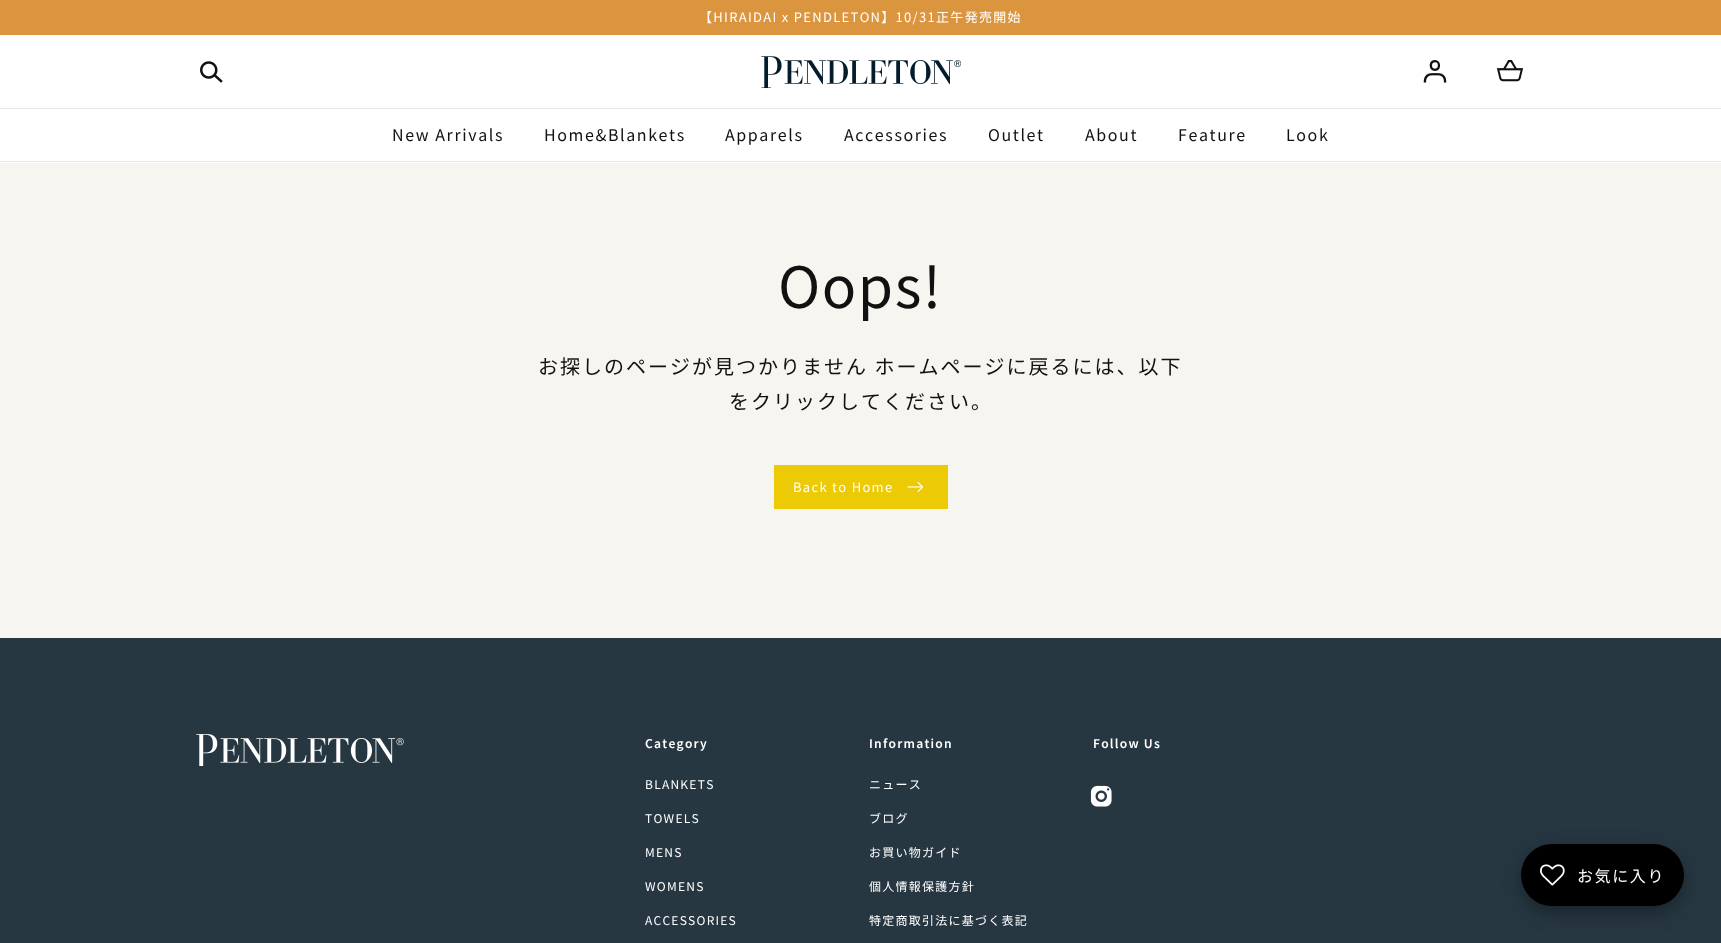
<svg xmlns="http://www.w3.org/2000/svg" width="1721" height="943">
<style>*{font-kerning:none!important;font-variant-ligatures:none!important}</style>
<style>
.a{font:13px Noto Sans JP;letter-spacing:1.3px;fill:#fff}
.b{font:16px Noto Sans JP;letter-spacing:1.6px;fill:#111}
.c{font:57px Noto Sans JP;letter-spacing:1.5px;fill:#111}
.d{font:20px Noto Sans JP;letter-spacing:2px;fill:#111}
.e{font:600 12px Noto Sans JP;letter-spacing:1.25px;fill:#fff}
.f{font:12px Noto Sans JP;letter-spacing:1.25px;fill:#fff}
.g{font:16px Noto Sans JP;letter-spacing:1.6px;fill:#fff}
</style>
<rect width="100%" height="100%" fill="#f7f5f0"/>
<path fill="#db953f" d="M0 0h1721v35H0z"/>
<path fill="#fff" d="M0 35h1721v128H0z"/>
<path fill="#e6e6e6" d="M0 161h1721v1H0z"/>
<path fill="#e6e6e6" d="M0 108h1721v1H0z"/>
<image href="1.png" x="200" y="61" width="23" height="22"/>
<image href="2.png" x="761" y="56" width="200" height="32"/>
<image href="3.png" x="1423" y="60" width="24" height="23"/>
<image href="4.png" x="1496" y="60" width="28" height="22"/>
<path fill="#edca06" d="M774 465h174v44H774z"/>
<image href="5.png" x="907" y="482" width="16" height="10"/>
<path fill="#273742" d="M0 638h1721v305H0z"/>
<image href="6.png" x="196" y="734" width="208" height="32"/>
<image href="7.png" x="1090" y="785" width="22" height="22"/>
<rect fill="#00000059" filter="blur(9.5px)" x="1521" y="850" width="163" height="63" rx="31.5"/>
<rect fill="#000" x="1521" y="844" width="163" height="62" rx="31"/>
<image href="8.png" x="1540" y="864" width="25" height="22"/>
<text class="a" x="699" y="22">【HIRAIDAI x PENDLETON】10/31正午発売開始</text>
<text class="b" x="392" y="141">New Arrivals</text>
<text class="b" x="544" y="141">Home&amp;Blankets</text>
<text class="b" x="725" y="141">Apparels</text>
<text class="b" x="844" y="141">Accessories</text>
<text class="b" x="988" y="141">Outlet</text>
<text class="b" x="1085" y="141">About</text>
<text class="b" x="1178" y="141">Feature</text>
<text class="b" x="1286" y="141">Look</text>
<text class="c" x="778" y="308">Oops!</text>
<text class="d" x="538" y="374">お探しのページが見つかりません ホームページに戻るには、以下</text>
<text class="d" x="729" y="409">をクリックしてください。</text>
<text class="a" x="793" y="492">Back to Home</text>
<text class="e" x="645" y="748">Category</text>
<text class="f" x="645" y="789">BLANKETS</text>
<text class="f" x="645" y="823">TOWELS</text>
<text class="f" x="645" y="857">MENS</text>
<text class="f" x="645" y="891">WOMENS</text>
<text class="f" x="645" y="925">ACCESSORIES</text>
<text class="e" x="869" y="748">Information</text>
<text class="f" x="869" y="789">ニュース</text>
<text class="f" x="869" y="823">ブログ</text>
<text class="f" x="869" y="857">お買い物ガイド</text>
<text class="f" x="869" y="891">個人情報保護方針</text>
<text class="f" x="869" y="925">特定商取引法に基づく表記</text>
<text class="e" x="1093" y="748">Follow Us</text>
<text class="g" x="1577" y="882">お気に入り</text>
</svg>
